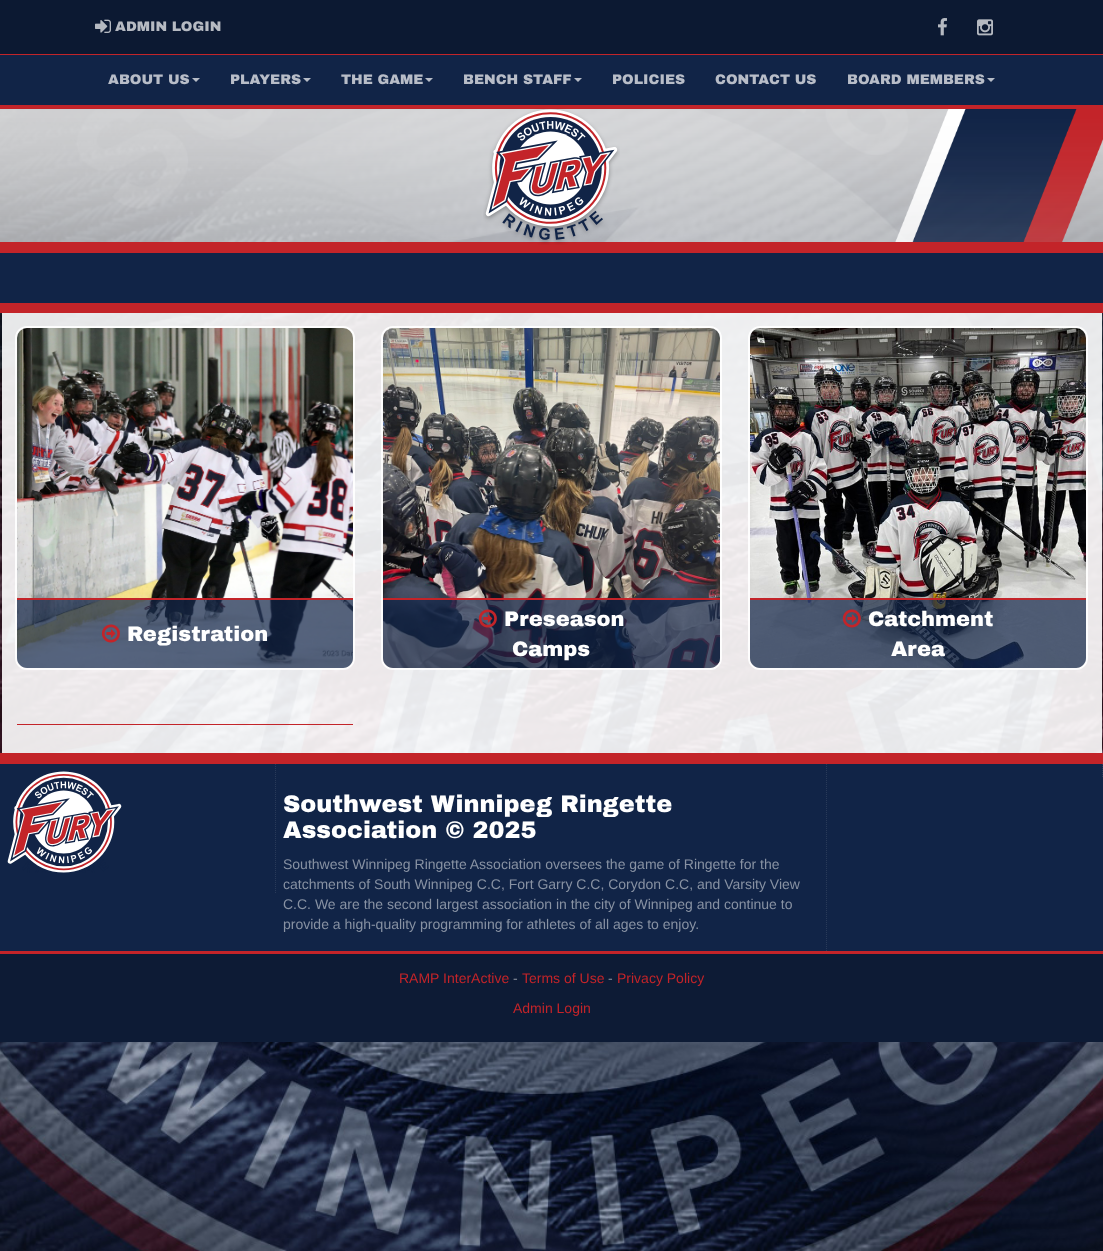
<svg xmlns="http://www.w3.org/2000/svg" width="1103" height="1251">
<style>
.a{font:900 14px Archivo Black;fill:#b6bac2}
.b{font:900 14px Archivo Black;fill:#b8bdc8}
.c{font:900 21px Archivo Black;fill:#fff}
.d{font:900 24px Archivo Black;fill:#fff}
.e{font:14px Liberation Sans;fill:#8892a3}
.f{font:14px Liberation Sans;fill:#c32429}
.g{font:14px Liberation Sans;fill:#868d9a}
</style>
<defs>
<clipPath id="clip1"><path d="M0 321h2v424H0z"/></clipPath>
<clipPath id="clip2"><path d="M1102 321h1v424H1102z"/></clipPath>
</defs>
<rect width="100%" height="100%" fill="#fff"/>
<path fill="#c32429" d="M0 54h1103v1H0z"/>
<path fill="#0c1932" d="M0 0h1103v54H0z"/>
<image href="1.png" x="95" y="19" width="16" height="14"/>
<image href="2.png" x="938" y="18" width="9" height="18"/>
<image href="3.png" x="977" y="19" width="16" height="17"/>
<path fill="#112447" d="M0 55h1103v50H0z"/>
<path fill="#c32429" d="M0 105h1103v4H0z"/>
<path fill="#b8bdc8" d="M192 78h8l-4 4z"/>
<path fill="#b8bdc8" d="M303 78h8l-4 4z"/>
<path fill="#b8bdc8" d="M425 78h8l-4 4z"/>
<path fill="#b8bdc8" d="M574 78h8l-4 4z"/>
<path fill="#b8bdc8" d="M987 78h8l-4 4z"/>
<image href="5.png" x="0" y="109" width="1103" height="1142"/>
<image href="6.png" x="0" y="109" width="1103" height="133"/>
<path fill="#c32429" d="M0 242h1103v11H0z"/>
<image href="4.png" x="483" y="108" width="137" height="137"/>
<g clip-path="url(#clip1)">
<path fill="#00000073" filter="blur(12.5px)" d="M2 338h1050v390H2z"/>
</g>
<g clip-path="url(#clip2)">
<path fill="#00000073" filter="blur(12.5px)" d="M52 338h1050v390H52z"/>
</g>
<path fill="#112447" d="M0 253h1103v50H0z"/>
<path fill="#c32429" d="M0 303h1103v10H0z"/>
<path fill="#ffffffe6" d="M2 313h1100v440H2z"/>
<rect fill="none" stroke="#ffffffe6" stroke-width="2" x="16" y="327" width="338" height="342" rx="11"/>
<image href="7.png" x="17" y="328" width="336" height="340"/>
<path fill="#112447b3" d="M17 598h336v60c0 5.5-4.5 10-10 10h-316c-5.5 0-10-4.5-10-10z"/>
<path fill="#c32429" d="M17 598h336v2H17z"/>
<image href="8.png" x="101" y="624" width="19" height="19"/>
<rect fill="none" stroke="#ffffffe6" stroke-width="2" x="382" y="327" width="339" height="342" rx="11"/>
<image href="9.png" x="383" y="328" width="337" height="340"/>
<path fill="#112447b3" d="M383 598h337v60c0 5.5-4.5 10-10 10h-317c-5.5 0-10-4.5-10-10z"/>
<path fill="#c32429" d="M383 598h337v2H383z"/>
<image href="10.png" x="478" y="609" width="19" height="19"/>
<rect fill="none" stroke="#ffffffe6" stroke-width="2" x="749" y="327" width="338" height="342" rx="11"/>
<image href="11.png" x="750" y="328" width="336" height="340"/>
<path fill="#112447b3" d="M750 598h336v60c0 5.5-4.5 10-10 10h-316c-5.5 0-10-4.5-10-10z"/>
<path fill="#c32429" d="M750 598h336v2H750z"/>
<image href="12.png" x="842" y="609" width="19" height="19"/>
<path fill="#c32429" d="M17 724h336v1H17z"/>
<path fill="#c32429" d="M0 753h1103v11H0z"/>
<path fill="#112447" d="M0 764h1103v187H0z"/>
<path fill="none" stroke="#293a59" stroke-dasharray="1 1" d="M275.5 764v129"/>
<image href="13.png" x="7" y="771" width="115" height="102"/>
<path fill="none" stroke="#293a59" stroke-dasharray="1 1" d="M1102.5 764v14"/>
<path fill="none" stroke="#293a59" stroke-dasharray="1 1" d="M826.5 764v187"/>
<path fill="#c32429" d="M0 951h1103v3H0z"/>
<path fill="#0d1b35" d="M0 954h1103v88H0z"/>
<text class="a" x="115" y="31">ADMIN LOGIN</text>
<text class="b" x="108" y="84">ABOUT US</text>
<text class="b" x="230" y="84">PLAYERS</text>
<text class="b" x="341" y="84">THE GAME</text>
<text class="b" x="463" y="84">BENCH STAFF</text>
<text class="b" x="612" y="84">POLICIES</text>
<text class="b" x="715" y="84">CONTACT US</text>
<text class="b" x="847" y="84">BOARD MEMBERS</text>
<text class="c" x="127" y="641">Registration</text>
<text class="c" x="504" y="626">Preseason</text>
<text class="c" x="512" y="656">Camps</text>
<text class="c" x="868" y="626">Catchment</text>
<text class="c" x="891" y="656">Area</text>
<text class="d" x="283" y="812">Southwest Winnipeg Ringette</text>
<text class="d" x="283" y="838">Association © 2025</text>
<text class="e" x="283" y="869">Southwest Winnipeg Ringette Association oversees the game of Ringette for the</text>
<text class="e" x="283" y="889">catchments of South Winnipeg C.C, Fort Garry C.C, Corydon C.C, and Varsity View</text>
<text class="e" x="283" y="909">C.C. We are the second largest association in the city of Winnipeg and continue to</text>
<text class="e" x="283" y="929">provide a high-quality programming for athletes of all ages to enjoy.</text>
<text class="f" x="399" y="983">RAMP InterActive</text>
<text class="g" x="513" y="983">-</text>
<text class="f" x="522" y="983">Terms of Use</text>
<text class="g" x="608" y="983">-</text>
<text class="f" x="617" y="983">Privacy Policy</text>
<text class="f" x="513" y="1013">Admin Login</text>
</svg>
